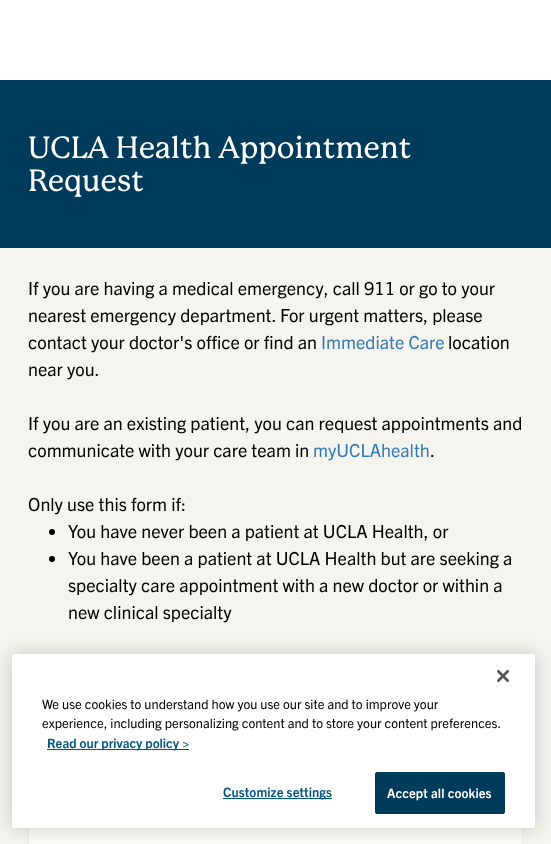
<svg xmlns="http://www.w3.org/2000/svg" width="551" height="844">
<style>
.a{font:500 30px 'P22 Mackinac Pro';fill:#fff}
.b{font:18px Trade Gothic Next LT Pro;fill:#000}
.c{font:18px Trade Gothic Next LT Pro;fill:#337ab7}
.d{font:13px Trade Gothic Next LT Pro;fill:#000}
.e{font:bold 13px Trade Gothic Next LT Pro;fill:#005587}
.f{font:bold 13px Trade Gothic Next LT Pro;letter-spacing:0.1px;fill:#005587}
.g{font:bold 13px Trade Gothic Next LT Pro;letter-spacing:0.1px;fill:#fff}
</style>
<rect width="100%" height="100%" fill="#f6f4ee"/>
<path fill="#fff" d="M0 0h551v80H0z"/>
<path fill="#003b5c" d="M0 80h551v168H0z"/>
<circle fill="#000" cx="52" cy="532" r="3"/>
<circle fill="#000" cx="52" cy="559" r="3"/>
<path fill="#fbfbf8" d="M29 828h493v16H29z"/>
<path fill="none" stroke="#ededed" d="M28.5 687.5h494v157H28.5z"/>
<rect fill="#00000033" filter="blur(9px)" x="12" y="654" width="523" height="174" rx="2.5"/>
<rect fill="#fff" x="12" y="654" width="523" height="174" rx="2.5"/>
<image href="1.png" x="497" y="670" width="12" height="12"/>
<path fill="#005587" d="M47 749h142v1H47z"/>
<path fill="#005587" d="M223 798h109v1H223z"/>
<rect fill="#003b5c" stroke="#003b5c" x="375.5" y="772.5" width="129" height="41" rx="1.5"/>
<text class="a" x="28" y="158">UCLA Health Appointment</text>
<text class="a" x="28" y="191">Request</text>
<text class="b" x="28" y="295">If you are having a medical emergency, call 911 or go to your</text>
<text class="b" x="28" y="322">nearest emergency department. For urgent matters, please</text>
<text class="b" x="28" y="349">contact your doctor's office or find an</text>
<text class="c" x="321" y="349">Immediate Care</text>
<text class="b" x="448" y="349">location</text>
<text class="b" x="28" y="376">near you.</text>
<text class="b" x="28" y="430">If you are an existing patient, you can request appointments and</text>
<text class="b" x="28" y="457">communicate with your care team in</text>
<text class="c" x="313" y="457">myUCLAhealth</text>
<text class="b" x="430" y="457">.</text>
<text class="b" x="28" y="511">Only use this form if:</text>
<text class="b" x="68" y="538">You have never been a patient at UCLA Health, or</text>
<text class="b" x="68" y="565">You have been a patient at UCLA Health but are seeking a</text>
<text class="b" x="68" y="592">specialty care appointment with a new doctor or within a</text>
<text class="b" x="68" y="619">new clinical specialty</text>
<text class="d" x="42" y="709">We use cookies to understand how you use our site and to improve your</text>
<text class="d" x="42" y="728">experience, including personalizing content and to store your content preferences.</text>
<text class="e" x="47" y="748">Read our privacy policy &gt;</text>
<text class="f" x="223" y="797">Customize settings</text>
<text class="g" x="387" y="798">Accept all cookies</text>
</svg>
